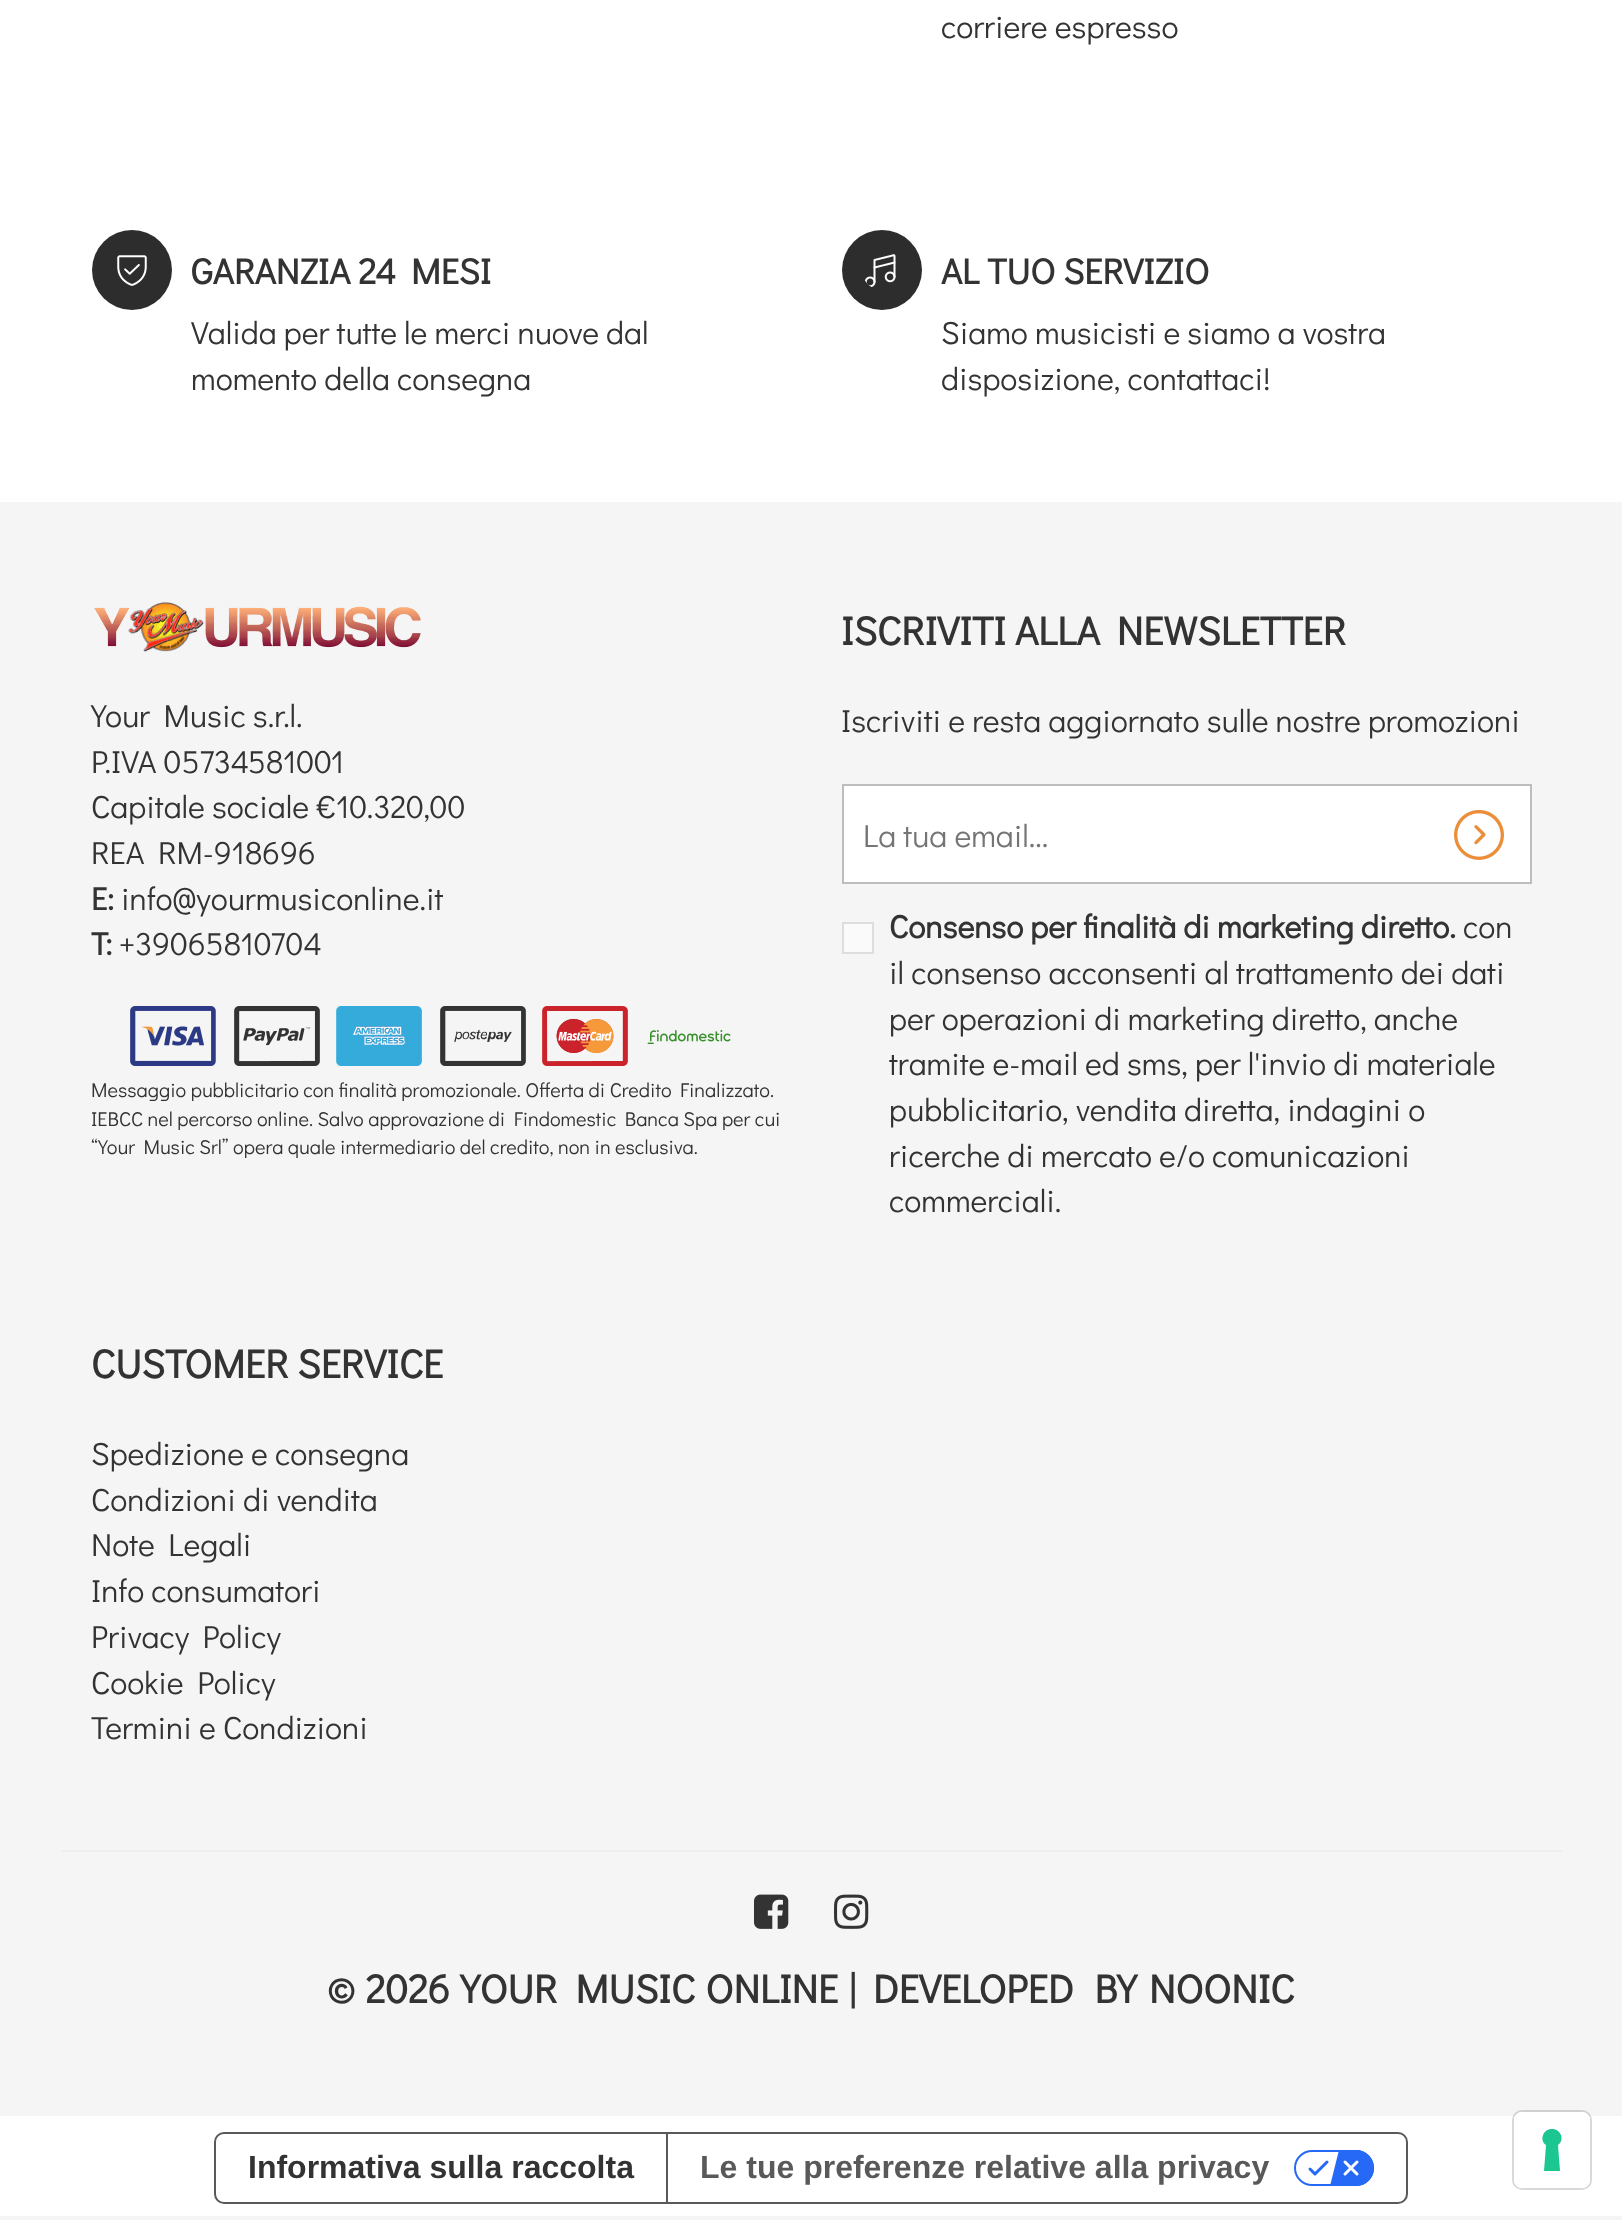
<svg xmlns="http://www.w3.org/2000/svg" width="1622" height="2220">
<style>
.a{font:32px Didact Gothic;fill:#333}
.b{font:bold 36px Didact Gothic;fill:#333}
.c{font:bold 32px Didact Gothic;fill:#333}
.d{font:20px Didact Gothic;fill:#333}
.e{font:bold 40px Didact Gothic;fill:#333}
.f{font:32px Didact Gothic;fill:#757575}
.g{font:bold 32px Liberation Sans;fill:#333}
.h{font:bold 32px Liberation Sans;fill:#595959}
</style>
<rect width="100%" height="100%" fill="#fff"/>
<circle fill="#2d2d2d" cx="132" cy="270" r="40"/>
<image href="1.png" x="117" y="255" width="30" height="31"/>
<circle fill="#2d2d2d" cx="882" cy="270" r="40"/>
<image href="2.png" x="865" y="254" width="31" height="33"/>
<path fill="#f5f5f5" d="M0 502h1622v1614H0z"/>
<image href="3.png" x="94" y="602" width="327" height="50"/>
<image href="4.png" x="130" y="1006" width="86" height="60"/>
<image href="5.png" x="234" y="1006" width="86" height="60"/>
<image href="6.png" x="336" y="1006" width="86" height="60"/>
<image href="7.png" x="440" y="1006" width="86" height="60"/>
<image href="8.png" x="542" y="1006" width="86" height="60"/>
<image href="9.png" x="647" y="1030" width="84" height="14"/>
<path fill="#fff" stroke="#bdbdbd" stroke-width="2" d="M843 785h688v98H843z"/>
<image href="10.png" x="1454" y="810" width="50" height="50"/>
<path fill="#fafafa" stroke="#ddd" stroke-width="2" d="M843 923h30v30H843z"/>
<path fill="#eee" d="M62 1850h1500v2H62z"/>
<image href="11.png" x="754" y="1894" width="35" height="35"/>
<image href="12.png" x="834" y="1894" width="35" height="35"/>
<rect fill="none" stroke="#595959" stroke-width="2" x="215" y="2133" width="1192" height="70" rx="9"/>
<path fill="#595959" d="M666 2134h2v68H666z"/>
<image href="13.png" x="1294" y="2150" width="80" height="36"/>
<rect fill="none" stroke="#00000026" stroke-width="2" x="1513" y="2111" width="78" height="78" rx="9"/>
<rect fill="#fff" x="1514" y="2112" width="76" height="76" rx="8"/>
<path fill="#1cc691" fill-rule="evenodd" d="M1552 2129c9 0 13 11 6 16l2 26h-16l2-26c-7-5-3-16 6-16z"/>
<path fill="#f5f5f5" d="M0 2216h1622v4H0z"/>
<text class="a" x="941" y="38">corriere espresso</text>
<text class="b" x="191" y="284">GARANZIA 24 MESI</text>
<text class="a" x="191" y="344">Valida per tutte le merci nuove dal</text>
<text class="a" x="191" y="390">momento della consegna</text>
<text class="b" x="941" y="284">AL TUO SERVIZIO</text>
<text class="a" x="941" y="344">Siamo musicisti e siamo a vostra</text>
<text class="a" x="941" y="390">disposizione, contattaci!</text>
<text class="a" x="91" y="727">Your Music s.r.l.</text>
<text class="a" x="91" y="773">P.IVA 05734581001</text>
<text class="a" x="91" y="818">Capitale sociale €10.320,00</text>
<text class="a" x="91" y="864">REA RM-918696</text>
<text class="c" x="91" y="910">E:</text>
<text class="a" x="121" y="910">info@yourmusiconline.it</text>
<text class="c" x="91" y="955">T:</text>
<text class="a" x="119" y="955">+39065810704</text>
<text class="d" x="91" y="1097">Messaggio pubblicitario con finalità promozionale. Offerta di Credito Finalizzato.</text>
<text class="d" x="91" y="1126">IEBCC nel percorso online. Salvo approvazione di Findomestic Banca Spa per cui</text>
<text class="d" x="91" y="1154">“Your Music Srl” opera quale intermediario del credito, non in esclusiva.</text>
<text class="e" x="841" y="645">ISCRIVITI ALLA NEWSLETTER</text>
<text class="a" x="841" y="732">Iscriviti e resta aggiornato sulle nostre promozioni</text>
<text class="f" x="863" y="847">La tua email...</text>
<text class="c" x="889" y="938">Consenso per finalità di marketing diretto.</text>
<text class="a" x="1463" y="938">con</text>
<text class="a" x="889" y="984">il consenso acconsenti al trattamento dei dati</text>
<text class="a" x="889" y="1030">per operazioni di marketing diretto, anche</text>
<text class="a" x="889" y="1075">tramite e-mail ed sms, per l'invio di materiale</text>
<text class="a" x="889" y="1121">pubblicitario, vendita diretta, indagini o</text>
<text class="a" x="889" y="1167">ricerche di mercato e/o comunicazioni</text>
<text class="a" x="889" y="1212">commerciali.</text>
<text class="e" x="91" y="1378">CUSTOMER SERVICE</text>
<text class="a" x="91" y="1465">Spedizione e consegna</text>
<text class="a" x="91" y="1511">Condizioni di vendita</text>
<text class="a" x="91" y="1556">Note Legali</text>
<text class="a" x="91" y="1602">Info consumatori</text>
<text class="a" x="91" y="1648">Privacy Policy</text>
<text class="a" x="91" y="1694">Cookie Policy</text>
<text class="a" x="91" y="1739">Termini e Condizioni</text>
<text class="e" x="327" y="2003" word-spacing="1.5">© 2026 YOUR MUSIC ONLINE</text>
<text class="e" x="849" y="2003">|</text>
<text class="e" x="873" y="2003" word-spacing="4">DEVELOPED BY</text>
<text class="e" x="1149" y="2003">NOONIC</text>
<text class="g" x="248" y="2178">Informativa sulla raccolta</text>
<text class="h" x="700" y="2178">Le tue preferenze relative alla privacy</text>
</svg>
